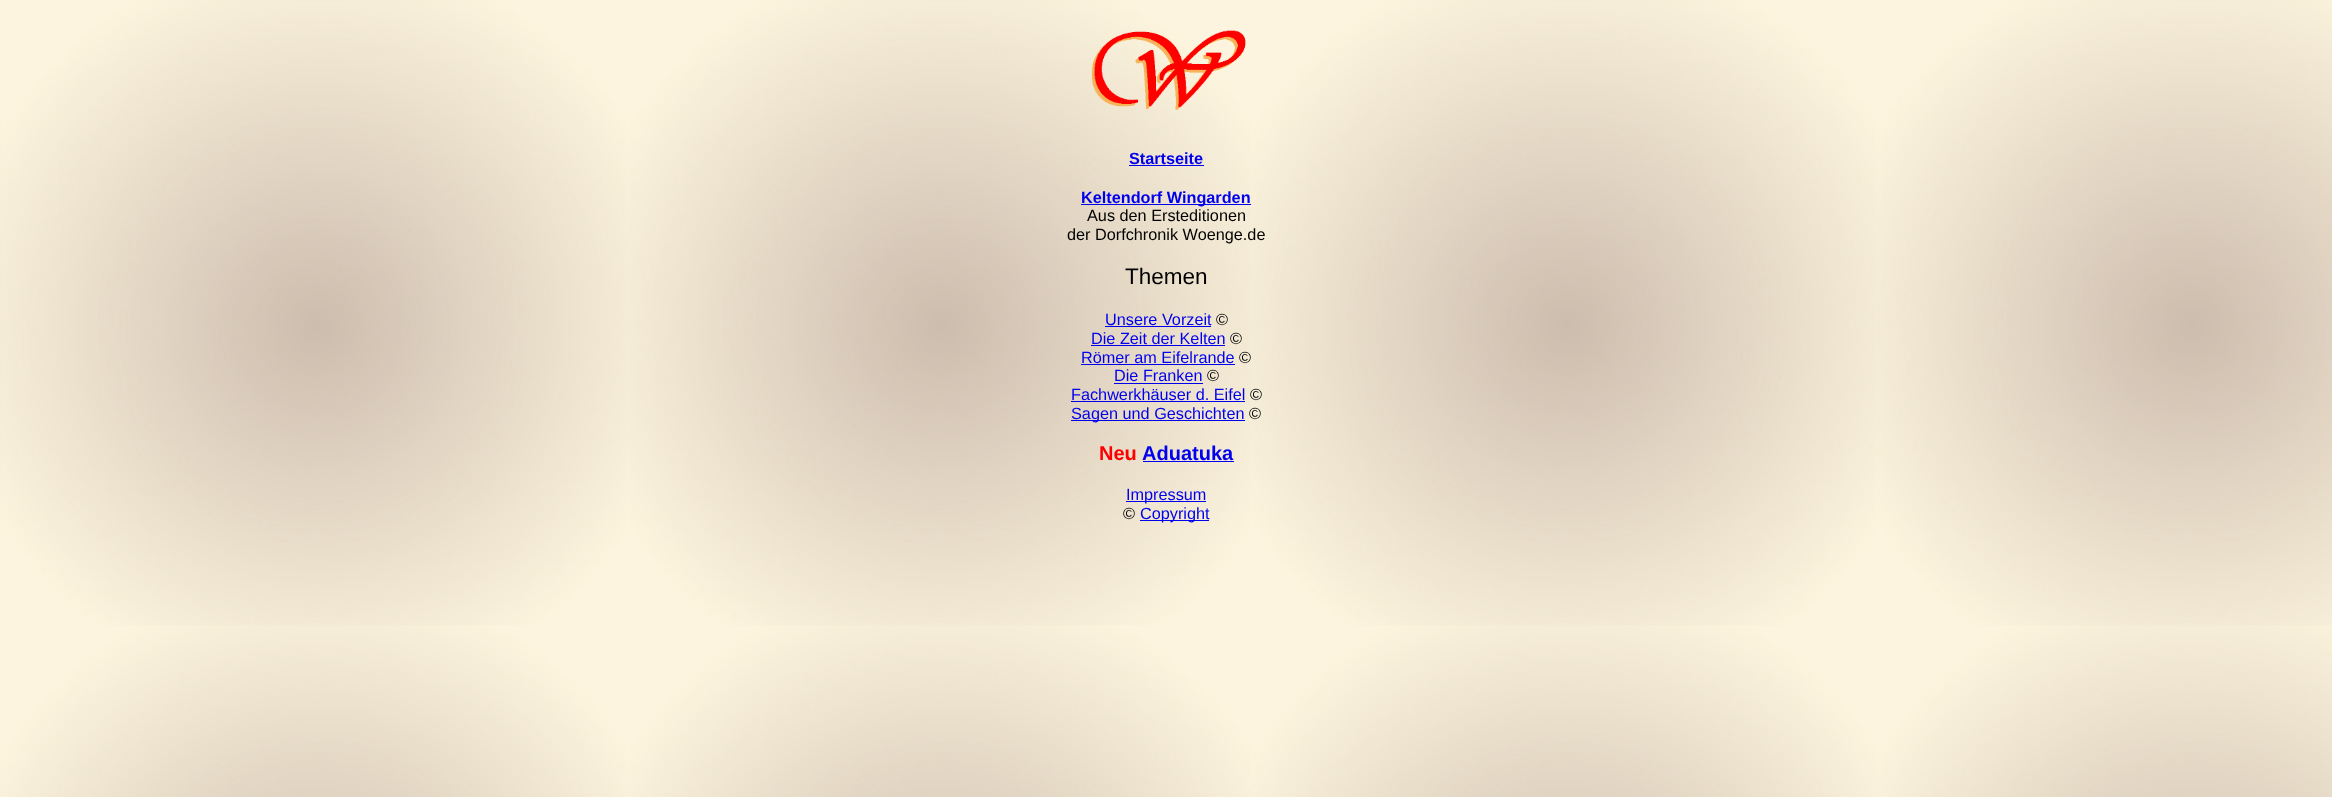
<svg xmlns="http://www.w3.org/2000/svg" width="2332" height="797">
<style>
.a{font:bold 16.25px Liberation Sans;fill:#00e}
.b{font:16.25px Liberation Sans;fill:#000}
.c{font:22.5px Liberation Sans;fill:#000}
.d{font:16.25px Liberation Sans;fill:#00e}
.e{font:bold 20px Liberation Sans;fill:#f00}
.f{font:bold 20px Liberation Sans;fill:#00e}
</style>
<rect width="100%" height="100%" fill="#fff"/>
<image href="1.png" x="0" y="0" width="2332" height="797"/>
<image href="2.png" x="1091" y="30" width="155" height="80"/>
<path fill="#00e" d="M1129 165h75v1H1129z"/>
<path fill="#00e" d="M1081 204h170v1H1081z"/>
<path fill="#00e" d="M1105 326h106v1H1105z"/>
<path fill="#00e" d="M1091 345h134v1H1091z"/>
<path fill="#00e" d="M1081 364h154v1H1081z"/>
<path fill="#00e" d="M1114 383h89v1H1114z"/>
<path fill="#00e" d="M1071 401h174v1H1071z"/>
<path fill="#00e" d="M1071 420h174v1H1071z"/>
<path fill="#00e" d="M1143 461h91v1H1143z"/>
<path fill="#00e" d="M1126 501h80v1H1126z"/>
<path fill="#00e" d="M1140 520h69v1H1140z"/>
<text class="a" x="1129" y="164">Startseite</text>
<text class="a" x="1081" y="203">Keltendorf Wingarden</text>
<text class="b" x="1087" y="221">Aus den Ersteditionen</text>
<text class="b" x="1067" y="240">der Dorfchronik Woenge.de</text>
<text class="c" x="1125" y="284">Themen</text>
<text class="d" x="1105" y="325">Unsere Vorzeit</text>
<text class="b" x="1216" y="325">©</text>
<text class="d" x="1091" y="344">Die Zeit der Kelten</text>
<text class="b" x="1230" y="344">©</text>
<text class="d" x="1081" y="363">Römer am Eifelrande</text>
<text class="b" x="1239" y="363">©</text>
<text class="d" x="1114" y="381">Die Franken</text>
<text class="b" x="1207" y="381">©</text>
<text class="d" x="1071" y="400">Fachwerkhäuser d. Eifel</text>
<text class="b" x="1250" y="400">©</text>
<text class="d" x="1071" y="419">Sagen und Geschichten</text>
<text class="b" x="1249" y="419">©</text>
<text class="e" x="1099" y="460">Neu</text>
<text class="f" x="1142" y="460">Aduatuka</text>
<text class="d" x="1126" y="500">Impressum</text>
<text class="b" x="1123" y="519">©</text>
<text class="d" x="1140" y="519">Copyright</text>
</svg>
